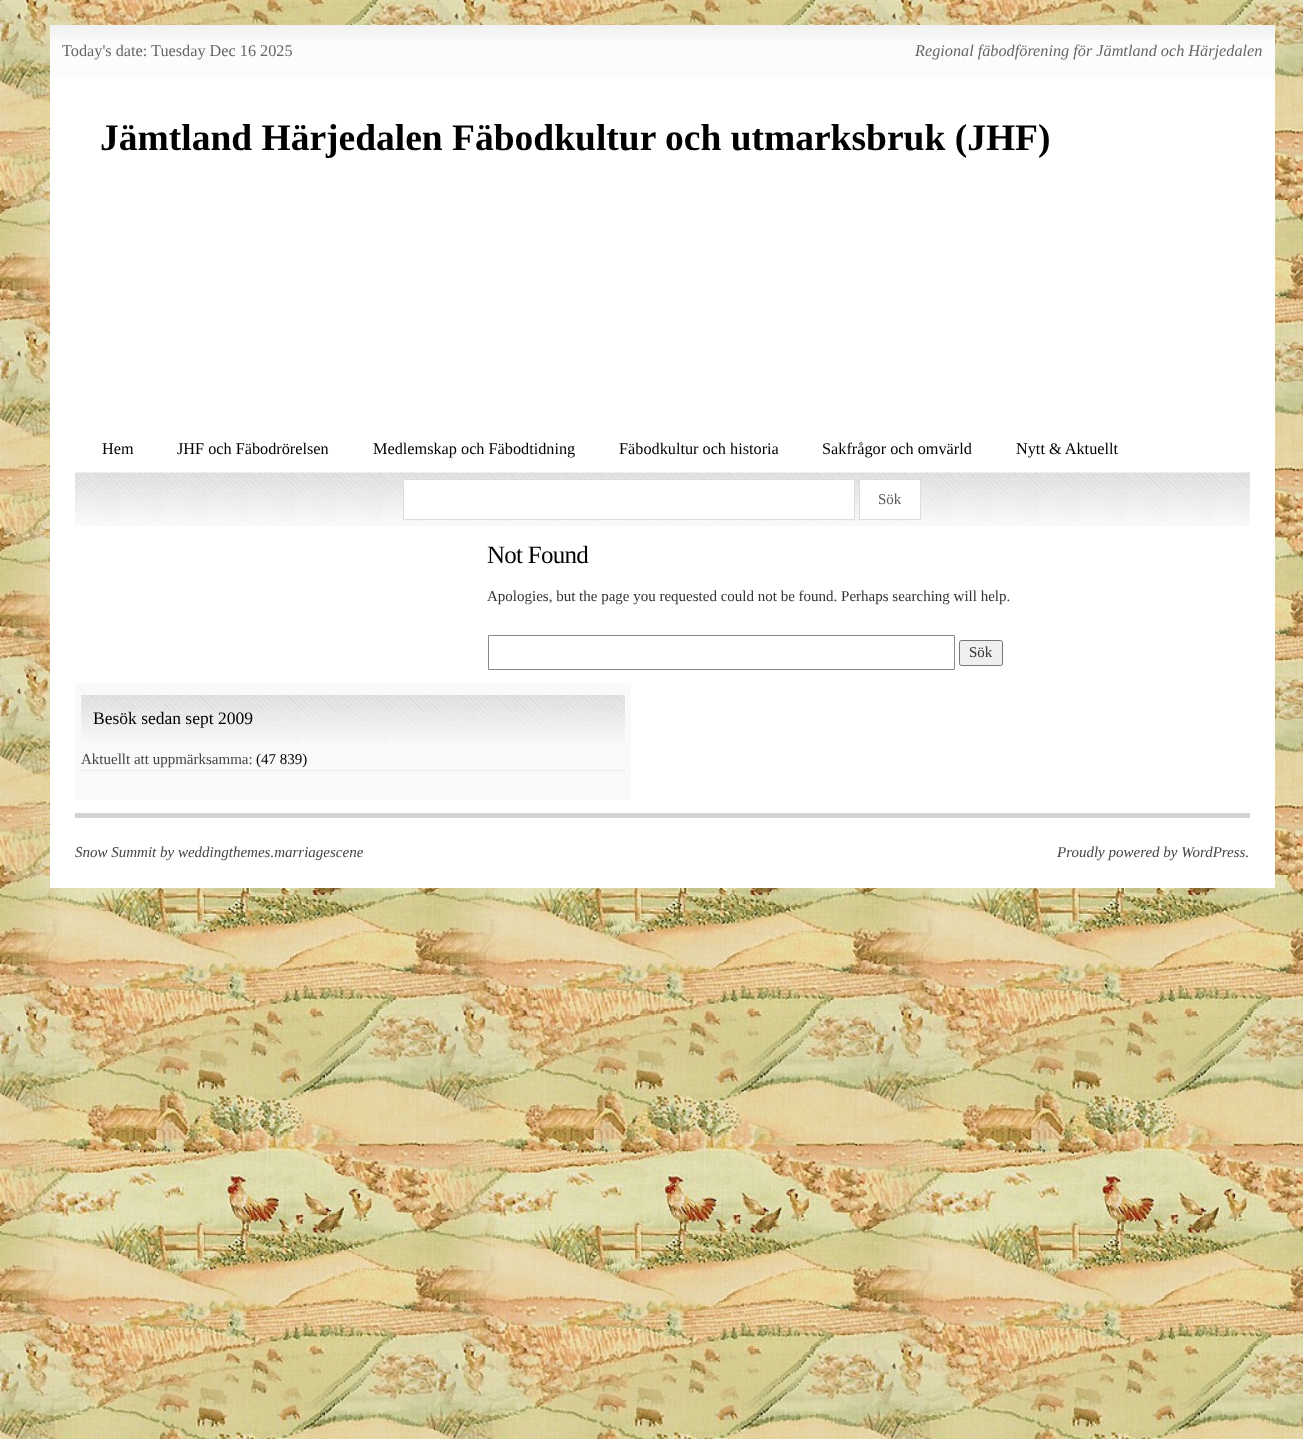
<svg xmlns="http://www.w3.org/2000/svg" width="1303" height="1439">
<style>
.a{font:16.25px Liberation Serif;fill:#666}
.b{font:italic 16.25px Liberation Serif;fill:#666}
.c{font:bold 37.5px Liberation Serif;fill:#000}
.d{font:16.25px Liberation Serif;fill:#000}
.e{font:15px Liberation Serif;fill:#5d5a5a}
.f{font:25px Liberation Serif;letter-spacing:-0.75px;fill:#000}
.g{font:15px Liberation Serif;fill:#333}
.h{font:17.5px Liberation Serif;fill:#000}
.i{font:15px Liberation Serif;fill:#444}
.j{font:15px Liberation Serif;fill:#000}
.k{font:italic 15px Liberation Serif;fill:#444}
</style>
<rect width="100%" height="100%" fill="#fff"/>
<image href="1.png" x="0" y="0" width="1303" height="1439"/>
<path fill="#fcfcfc" d="M50 25h1225v53H50z"/>
<image href="2.png" x="50" y="25" width="1225" height="14"/>
<path fill="#fff" d="M50 78h1225v810H50z"/>
<path fill="#f9f9f9" d="M75 522h1175v4H75z"/>
<image href="3.png" x="75" y="472" width="1175" height="50"/>
<path fill="#fff" stroke="#ddd" d="M403.5 479.5h451v40H403.5z"/>
<path fill="#fff" stroke="#ddd" d="M859.5 479.5h61v40H859.5z"/>
<path fill="none" stroke="#888" d="M488.5 635.5h466v34H488.5z"/>
<rect fill="#efefef" stroke="#767676" x="959.5" y="640.5" width="43" height="25" rx="2"/>
<path fill="#f9f9f9" d="M75 683h556v117H75z"/>
<image href="4.png" x="81" y="695" width="544" height="47"/>
<path fill="none" stroke="#ddd" stroke-width="1.2" stroke-dasharray="1.25 1.25" d="M81 770.5h544"/>
<path fill="#d4d4d4" d="M75 813h1175v5H75z"/>
<text class="a" x="62" y="56">Today's date: Tuesday Dec 16 2025</text>
<text class="b" x="915" y="56">Regional fäbodförening för Jämtland och Härjedalen</text>
<text class="c" x="100" y="150">Jämtland Härjedalen Fäbodkultur och utmarksbruk (JHF)</text>
<text class="d" x="102" y="454">Hem</text>
<text class="d" x="177" y="454">JHF och Fäbodrörelsen</text>
<text class="d" x="373" y="454">Medlemskap och Fäbodtidning</text>
<text class="d" x="619" y="454">Fäbodkultur och historia</text>
<text class="d" x="822" y="454">Sakfrågor och omvärld</text>
<text class="d" x="1016" y="454">Nytt &amp; Aktuellt</text>
<text class="e" x="878" y="504">Sök</text>
<text class="f" x="487" y="563">Not Found</text>
<text class="g" x="487" y="601">Apologies, but the page you requested could not be found. Perhaps searching will help.</text>
<text class="g" x="969" y="657">Sök</text>
<text class="h" x="93" y="724">Besök sedan sept 2009</text>
<text class="i" x="81" y="764">Aktuellt att uppmärksamma:</text>
<text class="j" x="256" y="764">(47 839)</text>
<text class="k" x="75" y="857">Snow Summit by weddingthemes.marriagescene</text>
<text class="k" x="1057" y="857">Proudly powered by WordPress.</text>
</svg>
